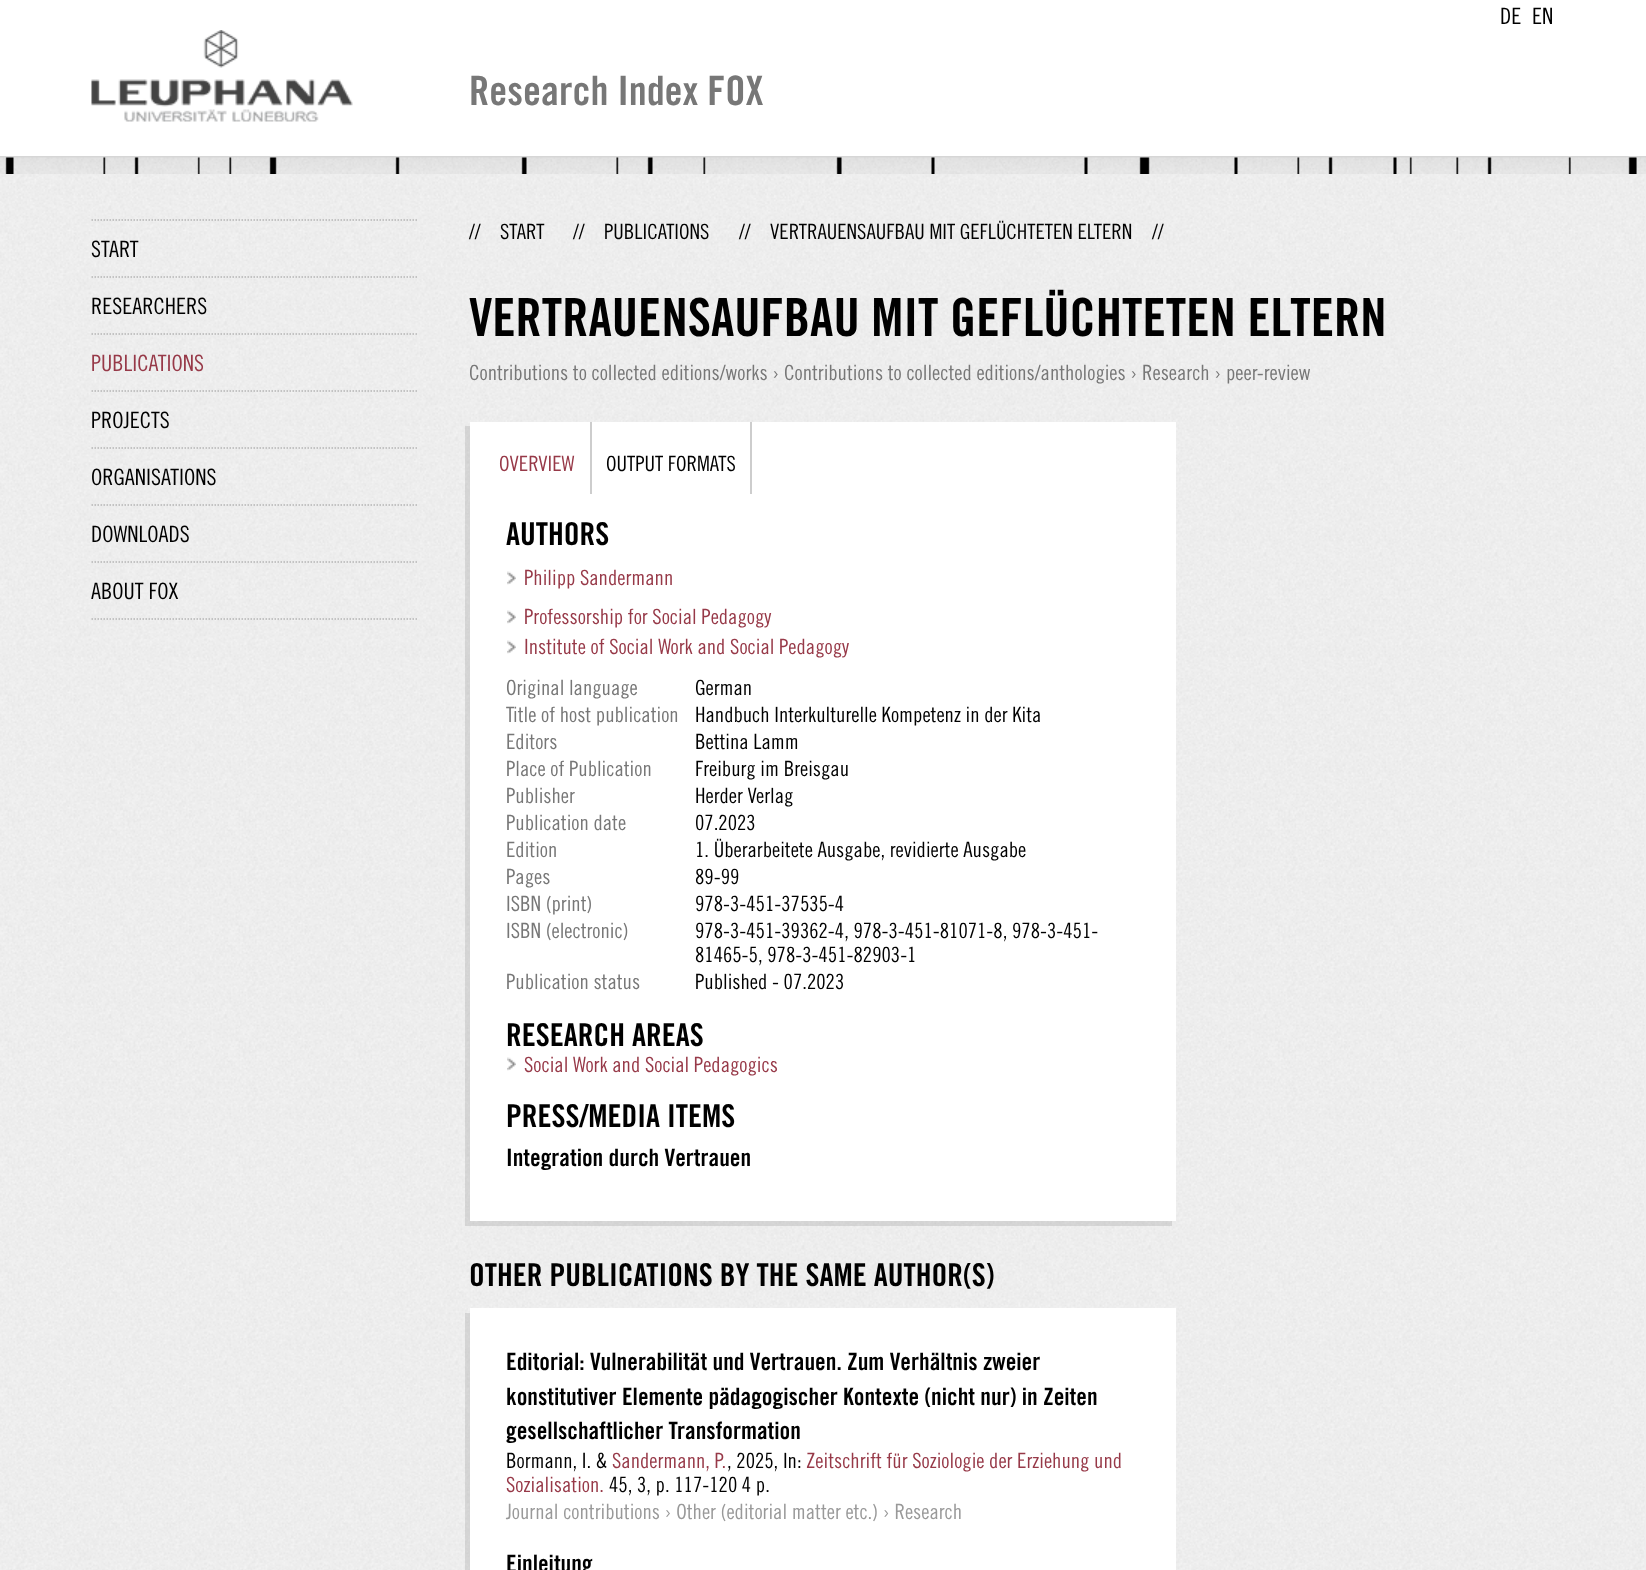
<svg xmlns="http://www.w3.org/2000/svg" width="1646" height="1570">
<style>
.a{font:22.5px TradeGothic;fill:#000}
.b{font:bold 40.5px 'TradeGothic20';fill:#777}
.c{font:22.5px TradeGothic;fill:#973948}
.d{font:21px TradeGothic;fill:#000}
.e{font:bold 52.5px 'TradeGothic20';fill:#000}
.f{font:21px TradeGothic;fill:#777}
.g{font:21px TradeGothic;fill:#973948}
.h{font:bold 31.5px 'TradeGothic20';fill:#000}
.i{font:bold 24px 'TradeGothic20';fill:#000}
.j{font:21px TradeGothic;fill:#999}
</style>
<rect width="100%" height="100%" fill="#eee"/>
<image href="1.png" x="0" y="174" width="1645" height="1396"/>
<path fill="#fff" d="M0 0h1646v156H0z"/>
<path fill="#d6d6d6" d="M0 156h1646v2H0z"/>
<image href="2.png" x="91" y="30" width="262" height="92"/>
<image href="3.png" x="0" y="157" width="1646" height="17"/>
<path fill="none" stroke="#b5b5b5" stroke-width="1.5" stroke-dasharray="1.5 1.5" d="M91.5 619h325.5"/>
<path fill="none" stroke="#b5b5b5" stroke-width="1.5" stroke-dasharray="1.5 1.5" d="M91.5 220h325.5"/>
<path fill="none" stroke="#b5b5b5" stroke-width="1.5" stroke-dasharray="1.5 1.5" d="M91.5 277h325.5"/>
<path fill="none" stroke="#b5b5b5" stroke-width="1.5" stroke-dasharray="1.5 1.5" d="M91.5 334h325.5"/>
<path fill="none" stroke="#b5b5b5" stroke-width="1.5" stroke-dasharray="1.5 1.5" d="M91.5 391h325.5"/>
<path fill="none" stroke="#b5b5b5" stroke-width="1.5" stroke-dasharray="1.5 1.5" d="M91.5 448h325.5"/>
<path fill="none" stroke="#b5b5b5" stroke-width="1.5" stroke-dasharray="1.5 1.5" d="M91.5 505h325.5"/>
<path fill="none" stroke="#b5b5b5" stroke-width="1.5" stroke-dasharray="1.5 1.5" d="M91.5 562h325.5"/>
<path fill="#0000001a" d="M465 426v800h707v-5h-702v-795z"/>
<path fill="#fff" d="M470 422h706v799H470z"/>
<path fill="#cdcdcd" d="M590 422h2v72H590z"/>
<path fill="#cdcdcd" d="M750 422h2v72H750z"/>
<image href="4.png" x="507" y="571" width="9" height="14"/>
<image href="4.png" x="507" y="610" width="9" height="14"/>
<image href="4.png" x="507" y="640" width="9" height="14"/>
<image href="4.png" x="507" y="1057" width="9" height="14"/>
<path fill="#0000001a" d="M465 1313v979h707v-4h-702v-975z"/>
<path fill="#fff" d="M470 1308h706v262H470z"/>
<text class="a" x="1500" y="24">DE</text>
<text class="a" x="1532" y="24">EN</text>
<text class="b" x="469" y="105">Research Index FOX</text>
<text class="a" x="91" y="257">START</text>
<text class="a" x="91" y="314">RESEARCHERS</text>
<text class="c" x="91" y="371">PUBLICATIONS</text>
<text class="a" x="91" y="428">PROJECTS</text>
<text class="a" x="91" y="485">ORGANISATIONS</text>
<text class="a" x="91" y="542">DOWNLOADS</text>
<text class="a" x="91" y="599">ABOUT FOX</text>
<text class="d" x="469" y="239">//</text>
<text class="d" x="500" y="239">START</text>
<text class="d" x="573" y="239">//</text>
<text class="d" x="604" y="239">PUBLICATIONS</text>
<text class="d" x="739" y="239">//</text>
<text class="d" x="770" y="239">VERTRAUENSAUFBAU MIT GEFLÜCHTETEN ELTERN</text>
<text class="d" x="1152" y="239">//</text>
<text class="e" x="469" y="336">VERTRAUENSAUFBAU MIT GEFLÜCHTETEN ELTERN</text>
<text class="f" x="469" y="380">Contributions to collected editions/works › Contributions to collected editions/anthologies › Research › peer-review</text>
<text class="g" x="499" y="471">OVERVIEW</text>
<text class="d" x="606" y="471">OUTPUT FORMATS</text>
<text class="h" x="506" y="545">AUTHORS</text>
<text class="g" x="524" y="585">Philipp Sandermann</text>
<text class="g" x="524" y="624">Professorship for Social Pedagogy</text>
<text class="g" x="524" y="654">Institute of Social Work and Social Pedagogy</text>
<text class="f" x="506" y="695">Original language</text>
<text class="d" x="695" y="695">German</text>
<text class="f" x="506" y="722">Title of host publication</text>
<text class="d" x="695" y="722">Handbuch Interkulturelle Kompetenz in der Kita</text>
<text class="f" x="506" y="749">Editors</text>
<text class="d" x="695" y="749">Bettina Lamm</text>
<text class="f" x="506" y="776">Place of Publication</text>
<text class="d" x="695" y="776">Freiburg im Breisgau</text>
<text class="f" x="506" y="803">Publisher</text>
<text class="d" x="695" y="803">Herder Verlag</text>
<text class="f" x="506" y="830">Publication date</text>
<text class="d" x="695" y="830">07.2023</text>
<text class="f" x="506" y="857">Edition</text>
<text class="d" x="695" y="857">1. Überarbeitete Ausgabe, revidierte Ausgabe</text>
<text class="f" x="506" y="884">Pages</text>
<text class="d" x="695" y="884">89-99</text>
<text class="f" x="506" y="911">ISBN (print)</text>
<text class="d" x="695" y="911">978-3-451-37535-4</text>
<text class="f" x="506" y="938">ISBN (electronic)</text>
<text class="d" x="695" y="938">978-3-451-39362-4, 978-3-451-81071-8, 978-3-451-</text>
<text class="d" x="695" y="962">81465-5, 978-3-451-82903-1</text>
<text class="f" x="506" y="989">Publication status</text>
<text class="d" x="695" y="989">Published - 07.2023</text>
<text class="h" x="506" y="1046">RESEARCH AREAS</text>
<text class="g" x="524" y="1072">Social Work and Social Pedagogics</text>
<text class="h" x="506" y="1127">PRESS/MEDIA ITEMS</text>
<text class="i" x="506" y="1166">Integration durch Vertrauen</text>
<text class="h" x="469" y="1286">OTHER PUBLICATIONS BY THE SAME AUTHOR(S)</text>
<text class="i" x="506" y="1370">Editorial: Vulnerabilität und Vertrauen. Zum Verhältnis zweier</text>
<text class="i" x="506" y="1405">konstitutiver Elemente pädagogischer Kontexte (nicht nur) in Zeiten</text>
<text class="i" x="506" y="1439">gesellschaftlicher Transformation</text>
<text class="d" x="506" y="1468">Bormann, I. &amp;</text>
<text class="g" x="612" y="1468">Sandermann, P.</text>
<text class="d" x="727" y="1468">, 2025, In:</text>
<text class="g" x="806" y="1468">Zeitschrift für Soziologie der Erziehung und</text>
<text class="g" x="506" y="1492">Sozialisation.</text>
<text class="d" x="609" y="1492">45, 3, p. 117-120 4 p.</text>
<text class="j" x="506" y="1519">Journal contributions › Other (editorial matter etc.) › Research</text>
<text class="i" x="506" y="1572">Einleitung</text>
</svg>
